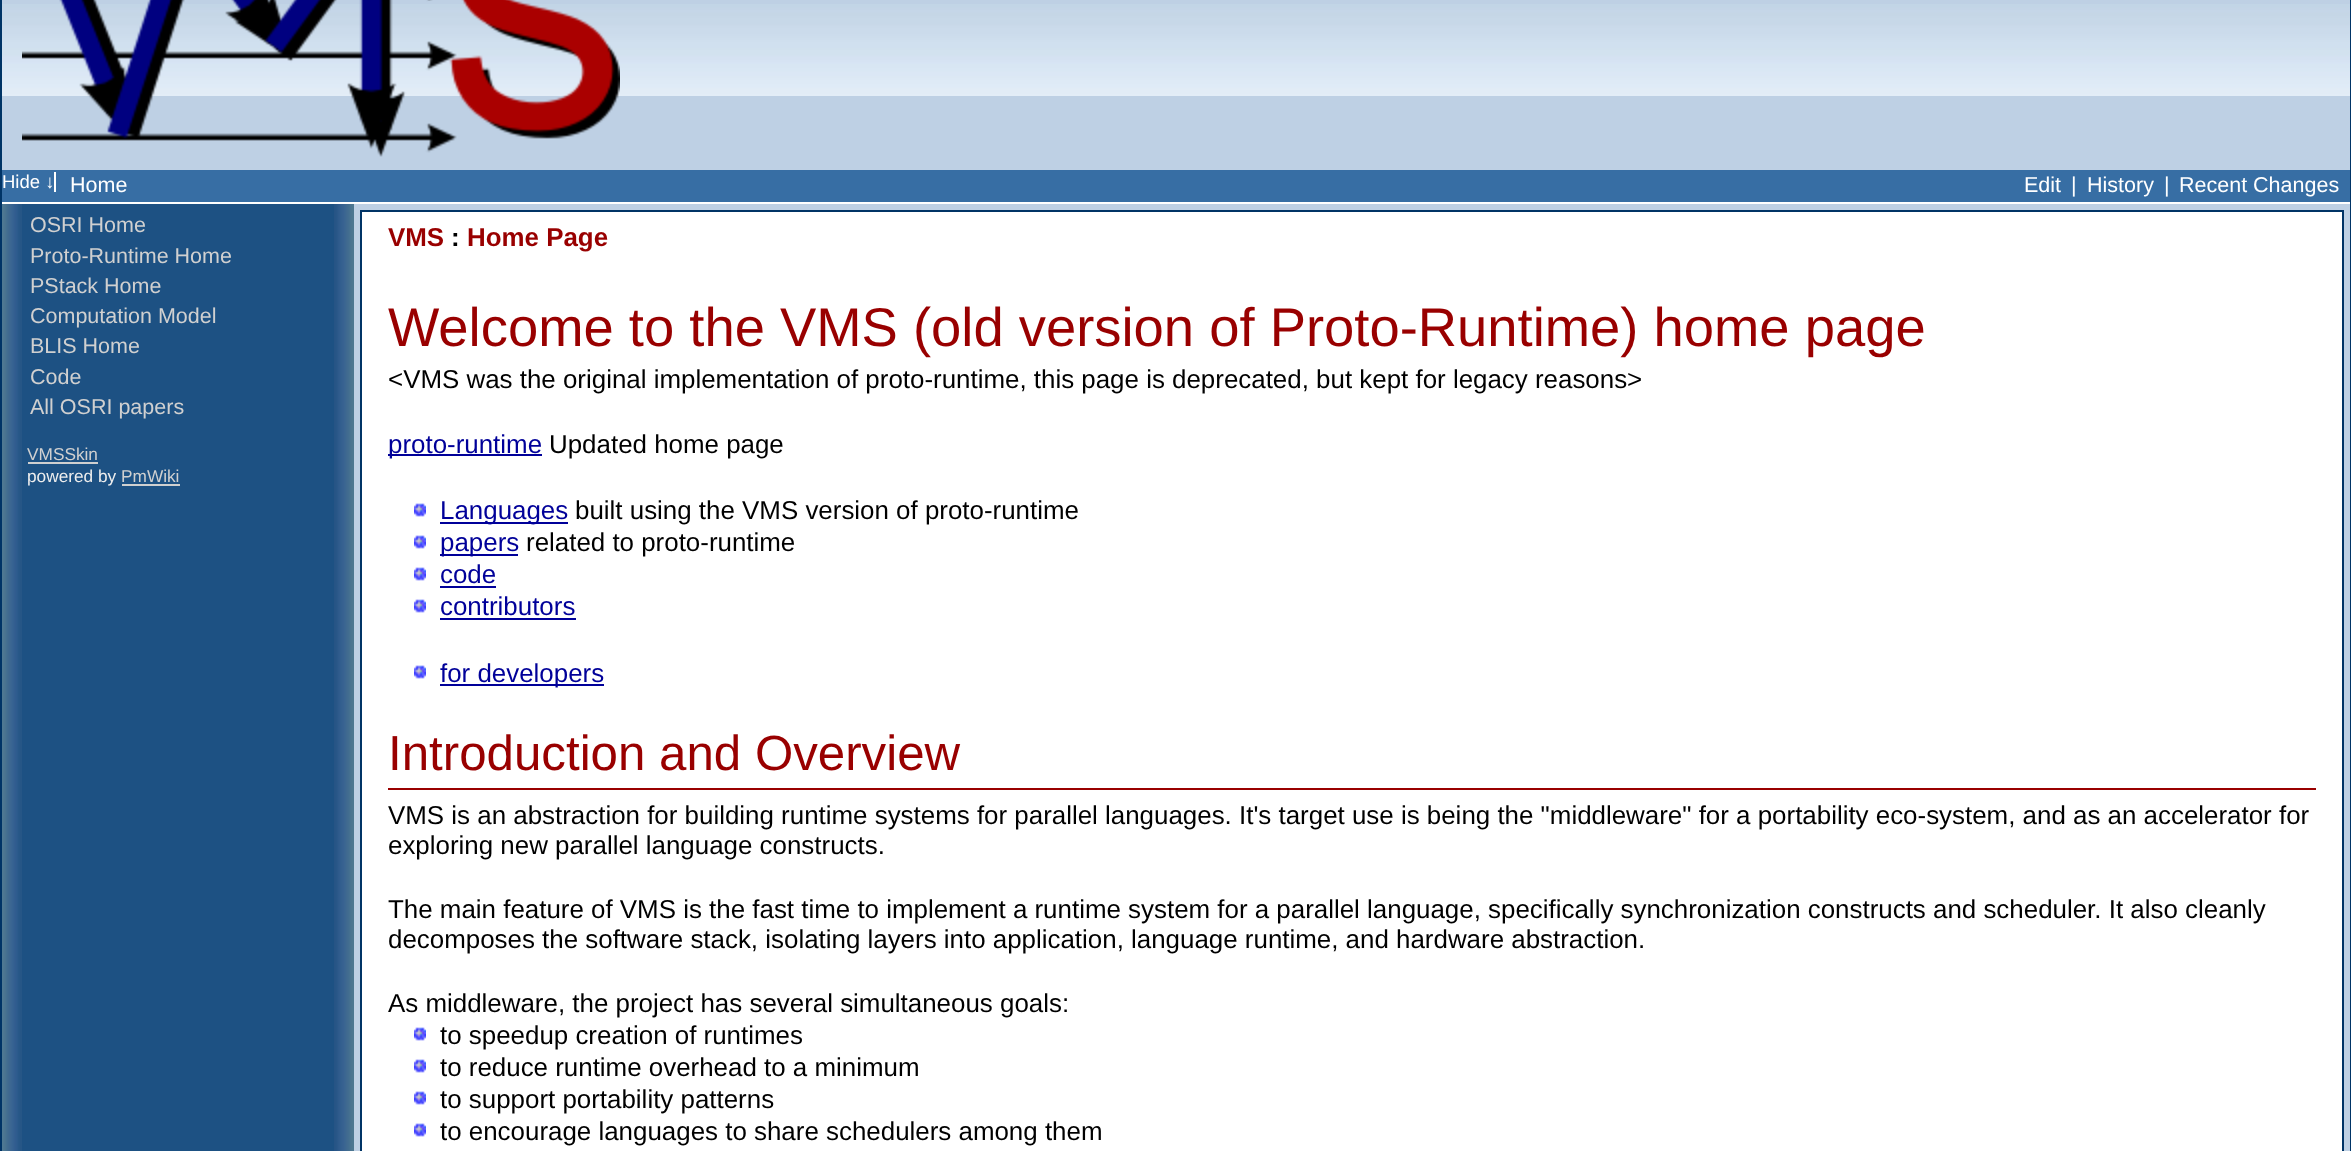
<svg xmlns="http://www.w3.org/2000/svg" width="2351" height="1151">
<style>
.a{font:18.5px Liberation Sans;fill:#fff}
.b{font:21.5px Liberation Sans;fill:#fff}
.c{font:21.5px Liberation Sans;fill:#d0d0d0}
.d{font:17.25px Liberation Sans;fill:#d0d0d0}
.e{font:17.25px Liberation Sans;fill:#eee}
.f{font:bold 25.92px Liberation Sans;fill:#900}
.g{font:bold 25.92px Liberation Sans;fill:#000}
.h{font:54.4px Liberation Sans;fill:#900}
.i{font:25.92px Liberation Sans;fill:#000}
.j{font:25.92px Liberation Sans;fill:#009}
.k{font:49.25px Liberation Sans;fill:#900}
</style>
<rect width="100%" height="100%" fill="#1d5183"/>
<image href="1.png" x="2" y="204" width="20" height="947"/>
<path fill="none" stroke="#003466" stroke-width="2" d="M1 -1h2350v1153H1z"/>
<path fill="#bed0e4" d="M2 0h2348v170H2z"/>
<image href="2.png" x="2" y="4" width="2348" height="92"/>
<image href="3.png" x="22" y="0" width="598" height="157"/>
<path fill="#376ea4" d="M2 170h2348v32H2z"/>
<path fill="#fff" d="M2 202h2348v2H2z"/>
<path fill="#fff" d="M54 172h2v20H54z"/>
<image href="4.png" x="334" y="204" width="20" height="947"/>
<path fill="#d0d0d0" d="M28 462h70v2H28z"/>
<path fill="#d0d0d0" d="M122 484h58v2H122z"/>
<path fill="#bed0e4" d="M354 204h1996v947H354z"/>
<path fill="#fff" stroke="#003466" stroke-width="2" d="M361 211h1982v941H361z"/>
<path fill="#009" d="M388 454h154v2H388z"/>
<image href="5.png" x="414" y="503" width="12" height="14"/>
<path fill="#009" d="M440 522h128v2H440z"/>
<image href="5.png" x="414" y="535" width="12" height="14"/>
<path fill="#009" d="M440 554h78v2H440z"/>
<image href="5.png" x="414" y="567" width="12" height="14"/>
<path fill="#009" d="M440 586h56v2H440z"/>
<image href="5.png" x="414" y="599" width="12" height="14"/>
<path fill="#009" d="M440 618h136v2H440z"/>
<image href="5.png" x="414" y="665" width="12" height="14"/>
<path fill="#009" d="M440 684h164v2H440z"/>
<path fill="#900" d="M388 788h1928v2H388z"/>
<image href="5.png" x="414" y="1027" width="12" height="14"/>
<image href="5.png" x="414" y="1059" width="12" height="14"/>
<image href="5.png" x="414" y="1091" width="12" height="14"/>
<image href="5.png" x="414" y="1123" width="12" height="14"/>
<text class="a" x="2" y="188">Hide ↓</text>
<text class="b" x="70" y="192">Home</text>
<text class="b" x="2024" y="192">Edit</text>
<text class="b" x="2071" y="192">|</text>
<text class="b" x="2087" y="192">History</text>
<text class="b" x="2164" y="192">|</text>
<text class="b" x="2179" y="192">Recent Changes</text>
<text class="c" x="30" y="232">OSRI Home</text>
<text class="c" x="30" y="263">Proto-Runtime Home</text>
<text class="c" x="30" y="293">PStack Home</text>
<text class="c" x="30" y="323">Computation Model</text>
<text class="c" x="30" y="353">BLIS Home</text>
<text class="c" x="30" y="384">Code</text>
<text class="c" x="30" y="414">All OSRI papers</text>
<text class="d" x="27" y="460">VMSSkin</text>
<text class="e" x="27" y="482">powered by</text>
<text class="d" x="121" y="482">PmWiki</text>
<text class="f" x="388" y="246">VMS</text>
<text class="g" x="451" y="246">:</text>
<text class="f" x="467" y="246">Home Page</text>
<text class="h" x="388" y="346">Welcome to the VMS (old version of Proto-Runtime) home page</text>
<text class="i" x="388" y="388">&lt;VMS was the original implementation of proto-runtime, this page is deprecated, but kept for legacy reasons&gt;</text>
<text class="j" x="388" y="453">proto-runtime</text>
<text class="i" x="549" y="453">Updated home page</text>
<text class="j" x="440" y="519">Languages</text>
<text class="i" x="575" y="519">built using the VMS version of proto-runtime</text>
<text class="j" x="440" y="551">papers</text>
<text class="i" x="526" y="551">related to proto-runtime</text>
<text class="j" x="440" y="583">code</text>
<text class="j" x="440" y="615">contributors</text>
<text class="j" x="440" y="682">for developers</text>
<text class="k" x="388" y="770">Introduction and Overview</text>
<text class="i" x="388" y="824">VMS is an abstraction for building runtime systems for parallel languages. It's target use is being the "middleware" for a portability eco-system, and as an accelerator for</text>
<text class="i" x="388" y="854">exploring new parallel language constructs.</text>
<text class="i" x="388" y="918">The main feature of VMS is the fast time to implement a runtime system for a parallel language, specifically synchronization constructs and scheduler. It also cleanly</text>
<text class="i" x="388" y="948">decomposes the software stack, isolating layers into application, language runtime, and hardware abstraction.</text>
<text class="i" x="388" y="1012">As middleware, the project has several simultaneous goals:</text>
<text class="i" x="440" y="1044">to speedup creation of runtimes</text>
<text class="i" x="440" y="1076">to reduce runtime overhead to a minimum</text>
<text class="i" x="440" y="1108">to support portability patterns</text>
<text class="i" x="440" y="1140">to encourage languages to share schedulers among them</text>
</svg>
